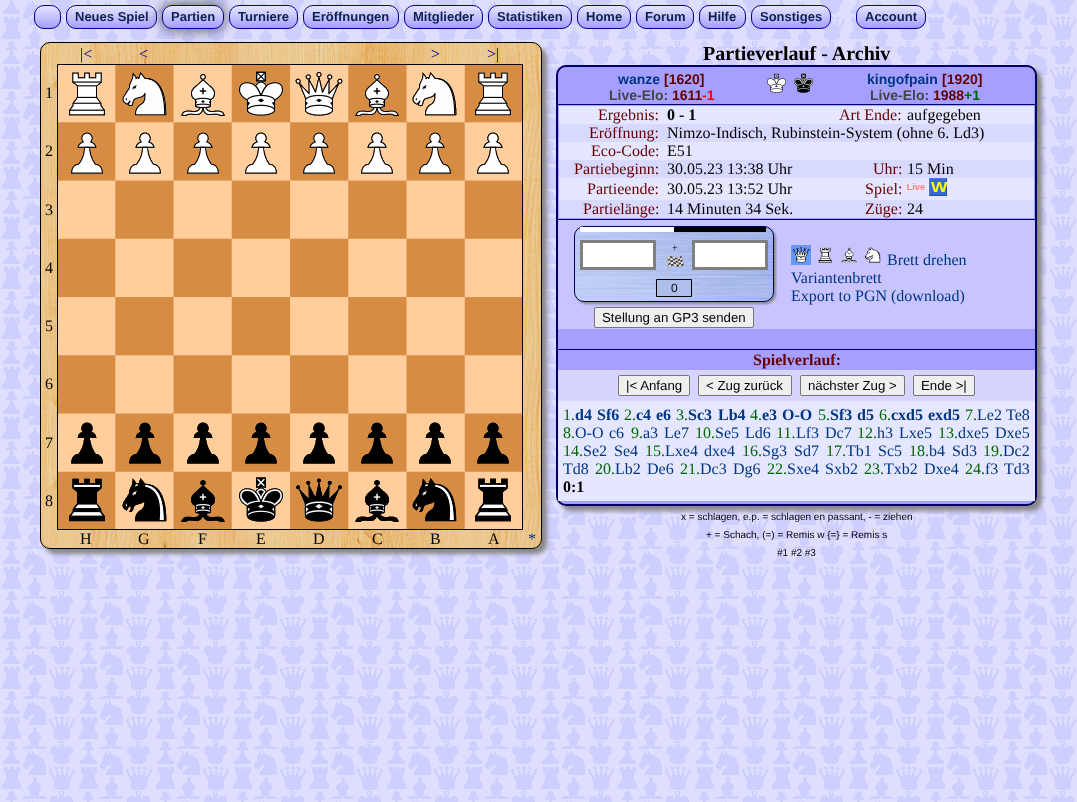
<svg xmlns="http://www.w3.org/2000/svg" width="1077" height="802">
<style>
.a{font:bold 13px Liberation Sans;fill:#0e224d}
.b{font:16px Liberation Serif;fill:#000080}
.c{font:16px Liberation Serif;fill:#000}
.d{font:16px Liberation Serif;fill:#003580}
.e{font:bold 20px Liberation Serif;fill:#000}
.f{font:bold 14px Liberation Sans;fill:#003580}
.g{font:bold 14px Liberation Sans;fill:#600}
.h{font:bold 14px Liberation Sans;fill:#444}
.i{font:bold 14px Liberation Sans;fill:#f00}
.j{font:bold 14px Liberation Sans;fill:#060}
.k{font:16px Liberation Serif;fill:#600}
.l{font:bold 16px Liberation Serif;fill:#000}
.m{font:10px Liberation Serif;fill:#000}
.n{font:16px Noto Color Emoji;fill:#000}
.o{font:12px Liberation Sans;fill:#000}
.p{font:13.25px Liberation Sans;fill:#000}
.q{font:bold 16px Liberation Serif;fill:#600}
.r{font:16px Liberation Serif;fill:#060}
.s{font:bold 16px Liberation Serif;fill:#003580}
.t{font:10px Liberation Sans;fill:#000}
</style>
<defs>
<clipPath id="clip1"><rect x="34" y="5" width="27" height="24" rx="10"/></clipPath>
<linearGradient id="g1" gradientUnits="userSpaceOnUse" x1="48" y1="6" x2="48" y2="28"><stop offset="0" stop-color="#e5e6ff"/><stop offset="1" stop-color="#a59fff"/></linearGradient>
<clipPath id="clip2"><rect x="66" y="5" width="91" height="24" rx="10"/></clipPath>
<linearGradient id="g2" gradientUnits="userSpaceOnUse" x1="112" y1="6" x2="112" y2="28"><stop offset="0" stop-color="#e5e6ff"/><stop offset="1" stop-color="#a59fff"/></linearGradient>
<clipPath id="clip3"><rect x="162" y="5" width="62" height="24" rx="10"/></clipPath>
<linearGradient id="g3" gradientUnits="userSpaceOnUse" x1="193" y1="6" x2="193" y2="28"><stop offset="0" stop-color="#e5e6ff"/><stop offset="1" stop-color="#a59fff"/></linearGradient>
<clipPath id="clip4"><rect x="229" y="5" width="69" height="24" rx="10"/></clipPath>
<linearGradient id="g4" gradientUnits="userSpaceOnUse" x1="264" y1="6" x2="264" y2="28"><stop offset="0" stop-color="#e5e6ff"/><stop offset="1" stop-color="#a59fff"/></linearGradient>
<clipPath id="clip5"><rect x="303" y="5" width="96" height="24" rx="10"/></clipPath>
<linearGradient id="g5" gradientUnits="userSpaceOnUse" x1="351" y1="6" x2="351" y2="28"><stop offset="0" stop-color="#e5e6ff"/><stop offset="1" stop-color="#a59fff"/></linearGradient>
<clipPath id="clip6"><rect x="404" y="5" width="79" height="24" rx="10"/></clipPath>
<linearGradient id="g6" gradientUnits="userSpaceOnUse" x1="444" y1="6" x2="444" y2="28"><stop offset="0" stop-color="#e5e6ff"/><stop offset="1" stop-color="#a59fff"/></linearGradient>
<clipPath id="clip7"><rect x="488" y="5" width="84" height="24" rx="10"/></clipPath>
<linearGradient id="g7" gradientUnits="userSpaceOnUse" x1="530" y1="6" x2="530" y2="28"><stop offset="0" stop-color="#e5e6ff"/><stop offset="1" stop-color="#a59fff"/></linearGradient>
<clipPath id="clip8"><rect x="577" y="5" width="54" height="24" rx="10"/></clipPath>
<linearGradient id="g8" gradientUnits="userSpaceOnUse" x1="604" y1="6" x2="604" y2="28"><stop offset="0" stop-color="#e5e6ff"/><stop offset="1" stop-color="#a59fff"/></linearGradient>
<clipPath id="clip9"><rect x="636" y="5" width="58" height="24" rx="10"/></clipPath>
<linearGradient id="g9" gradientUnits="userSpaceOnUse" x1="665" y1="6" x2="665" y2="28"><stop offset="0" stop-color="#e5e6ff"/><stop offset="1" stop-color="#a59fff"/></linearGradient>
<clipPath id="clip10"><rect x="699" y="5" width="47" height="24" rx="10"/></clipPath>
<linearGradient id="g10" gradientUnits="userSpaceOnUse" x1="723" y1="6" x2="723" y2="28"><stop offset="0" stop-color="#e5e6ff"/><stop offset="1" stop-color="#a59fff"/></linearGradient>
<clipPath id="clip11"><rect x="751" y="5" width="80" height="24" rx="10"/></clipPath>
<linearGradient id="g11" gradientUnits="userSpaceOnUse" x1="791" y1="6" x2="791" y2="28"><stop offset="0" stop-color="#e5e6ff"/><stop offset="1" stop-color="#a59fff"/></linearGradient>
<clipPath id="clip12"><rect x="856" y="5" width="70" height="24" rx="10"/></clipPath>
<linearGradient id="g12" gradientUnits="userSpaceOnUse" x1="891" y1="6" x2="891" y2="28"><stop offset="0" stop-color="#e5e6ff"/><stop offset="1" stop-color="#a59fff"/></linearGradient>
</defs>
<rect width="100%" height="100%" fill="#fff"/>
<image href="1.png" x="0" y="0" width="1077" height="802"/>
<g clip-path="url(#clip1)">
<path fill="url(#g1)" d="M34 6h27v22H34z"/>
</g>
<rect fill="none" stroke="#009" x="34.5" y="5.5" width="26" height="23" rx="9.5"/>
<g clip-path="url(#clip2)">
<path fill="url(#g2)" d="M66 6h91v22H66z"/>
</g>
<rect fill="none" stroke="#009" x="66.5" y="5.5" width="90" height="23" rx="9.5"/>
<rect fill="#888" filter="blur(2px)" x="45" y="47" width="502" height="507" rx="10"/>
<image href="2.png" x="40" y="42" width="502" height="507"/>
<rect fill="none" stroke="#000" x="40.5" y="42.5" width="501" height="506" rx="9.5"/>
<rect fill="#484a49" filter="blur(7.5px)" x="162" y="5" width="62" height="24" rx="10"/>
<g clip-path="url(#clip3)">
<path fill="url(#g3)" d="M162 6h62v22H162z"/>
</g>
<rect fill="none" stroke="#009" x="162.5" y="5.5" width="61" height="23" rx="9.5"/>
<g clip-path="url(#clip4)">
<path fill="url(#g4)" d="M229 6h69v22H229z"/>
</g>
<rect fill="none" stroke="#009" x="229.5" y="5.5" width="68" height="23" rx="9.5"/>
<g clip-path="url(#clip5)">
<path fill="url(#g5)" d="M303 6h96v22H303z"/>
</g>
<rect fill="none" stroke="#009" x="303.5" y="5.5" width="95" height="23" rx="9.5"/>
<g clip-path="url(#clip6)">
<path fill="url(#g6)" d="M404 6h79v22H404z"/>
</g>
<rect fill="none" stroke="#009" x="404.5" y="5.5" width="78" height="23" rx="9.5"/>
<g clip-path="url(#clip7)">
<path fill="url(#g7)" d="M488 6h84v22H488z"/>
</g>
<rect fill="none" stroke="#009" x="488.5" y="5.5" width="83" height="23" rx="9.5"/>
<g clip-path="url(#clip8)">
<path fill="url(#g8)" d="M577 6h54v22H577z"/>
</g>
<rect fill="none" stroke="#009" x="577.5" y="5.5" width="53" height="23" rx="9.5"/>
<g clip-path="url(#clip9)">
<path fill="url(#g9)" d="M636 6h58v22H636z"/>
</g>
<rect fill="none" stroke="#009" x="636.5" y="5.5" width="57" height="23" rx="9.5"/>
<g clip-path="url(#clip10)">
<path fill="url(#g10)" d="M699 6h47v22H699z"/>
</g>
<rect fill="none" stroke="#009" x="699.5" y="5.5" width="46" height="23" rx="9.5"/>
<g clip-path="url(#clip11)">
<path fill="url(#g11)" d="M751 6h80v22H751z"/>
</g>
<rect fill="none" stroke="#009" x="751.5" y="5.5" width="79" height="23" rx="9.5"/>
<g clip-path="url(#clip12)">
<path fill="url(#g12)" d="M856 6h70v22H856z"/>
</g>
<rect fill="none" stroke="#009" x="856.5" y="5.5" width="69" height="23" rx="9.5"/>
<image href="3.png" x="58" y="65" width="464" height="464"/>
<path fill="none" stroke="#000" d="M57.5 64.5h465v465H57.5z"/>
<image href="4.png" x="69" y="72" width="36" height="44"/>
<image href="5.png" x="122" y="72" width="45" height="44"/>
<image href="6.png" x="181" y="74" width="44" height="42"/>
<image href="7.png" x="239" y="71" width="44" height="45"/>
<image href="8.png" x="295" y="72" width="48" height="44"/>
<image href="9.png" x="355" y="74" width="44" height="42"/>
<image href="10.png" x="412" y="72" width="45" height="44"/>
<image href="11.png" x="475" y="72" width="36" height="44"/>
<image href="12.png" x="71" y="132" width="32" height="42"/>
<image href="13.png" x="129" y="132" width="32" height="42"/>
<image href="12.png" x="187" y="132" width="32" height="42"/>
<image href="13.png" x="245" y="132" width="32" height="42"/>
<image href="12.png" x="303" y="132" width="32" height="42"/>
<image href="13.png" x="361" y="132" width="32" height="42"/>
<image href="12.png" x="419" y="132" width="32" height="42"/>
<image href="13.png" x="477" y="132" width="32" height="42"/>
<image href="14.png" x="71" y="422" width="32" height="42"/>
<image href="15.png" x="129" y="422" width="32" height="42"/>
<image href="14.png" x="187" y="422" width="32" height="42"/>
<image href="15.png" x="245" y="422" width="32" height="42"/>
<image href="14.png" x="303" y="422" width="32" height="42"/>
<image href="15.png" x="361" y="422" width="32" height="42"/>
<image href="14.png" x="419" y="422" width="32" height="42"/>
<image href="15.png" x="477" y="422" width="32" height="42"/>
<image href="16.png" x="69" y="478" width="36" height="44"/>
<image href="17.png" x="122" y="478" width="45" height="44"/>
<image href="18.png" x="181" y="480" width="44" height="42"/>
<image href="19.png" x="239" y="477" width="44" height="45"/>
<image href="20.png" x="296" y="478" width="46" height="44"/>
<image href="21.png" x="355" y="480" width="44" height="42"/>
<image href="22.png" x="412" y="478" width="45" height="44"/>
<image href="23.png" x="475" y="478" width="36" height="44"/>
<rect fill="#888" filter="blur(2px)" x="561" y="70" width="481" height="441" rx="10"/>
<rect fill="#a59fff" stroke="#006" stroke-width="2" x="557" y="66" width="479" height="439" rx="9"/>
<path fill="#006" d="M558 104h477v1H558z"/>
<image href="24.png" x="767" y="73" width="19" height="20"/>
<image href="25.png" x="794" y="73" width="19" height="20"/>
<path fill="#006" d="M558 219h477v1H558z"/>
<path fill="#e5e6ff" d="M559 106h475v94H559z"/>
<path fill="#d7d9ff" d="M559 124h475v18H559z"/>
<path fill="#d7d9ff" d="M559 160h475v18H559z"/>
<image href="26.png" x="907" y="183" width="18" height="7"/>
<image href="27.png" x="929" y="178" width="18" height="18"/>
<path fill="#d7d9ff" d="M559 200h475v18H559z"/>
<path fill="#c7c4ff" d="M558 220h477v109H558z"/>
<rect fill="#888" filter="blur(1px)" x="576" y="228" width="200" height="76" rx="10"/>
<image href="28.png" x="574" y="226" width="200" height="76"/>
<rect fill="none" stroke="#006" x="574.5" y="226.5" width="199" height="75" rx="9.5"/>
<path fill="#fff" d="M580 227h94v5H580z"/>
<path fill="#000" d="M674 227h92v5H674z"/>
<path fill="#fff" stroke="#808080" stroke-width="3" d="M581.5 241.5h73v27H581.5z"/>
<path fill="#fff" stroke="#808080" stroke-width="3" d="M693.5 241.5h73v27H693.5z"/>
<path fill="#aebfed" stroke="#000" d="M656.5 279.5h35v17H656.5z"/>
<rect fill="#efefef" stroke="#767676" x="594.5" y="307.5" width="159" height="20" rx="1.5"/>
<path fill="#69f" d="M791 245h20v20H791z"/>
<image href="29.png" x="792" y="247" width="18" height="16"/>
<image href="30.png" x="818" y="247" width="14" height="16"/>
<image href="31.png" x="841" y="247" width="16" height="16"/>
<image href="32.png" x="865" y="247" width="16" height="16"/>
<path fill="#006" d="M558 349h477v1H558z"/>
<path fill="#d7d5ff" d="M558 370h477v31H558z"/>
<rect fill="#efefef" stroke="#767676" x="618.5" y="375.5" width="71" height="20" rx="1.5"/>
<rect fill="#efefef" stroke="#767676" x="698.5" y="375.5" width="93" height="20" rx="1.5"/>
<rect fill="#efefef" stroke="#767676" x="800.5" y="375.5" width="104" height="20" rx="1.5"/>
<rect fill="#efefef" stroke="#767676" x="913.5" y="375.5" width="61" height="20" rx="1.5"/>
<path fill="#e5e6ff" d="M558 401h477v100H558z"/>
<text class="a" x="75" y="21">Neues Spiel</text>
<text class="a" x="171" y="21">Partien</text>
<text class="a" x="238" y="21">Turniere</text>
<text class="a" x="312" y="21">Eröffnungen</text>
<text class="a" x="413" y="21">Mitglieder</text>
<text class="a" x="497" y="21">Statistiken</text>
<text class="a" x="586" y="21">Home</text>
<text class="a" x="645" y="21">Forum</text>
<text class="a" x="708" y="21">Hilfe</text>
<text class="a" x="760" y="21">Sonstiges</text>
<text class="a" x="865" y="21">Account</text>
<text class="b" x="80" y="59">|&lt;</text>
<text class="b" x="139" y="59">&lt;</text>
<text class="b" x="431" y="59">&gt;</text>
<text class="b" x="487" y="59">&gt;|</text>
<text class="c" x="45" y="98">1</text>
<text class="c" x="45" y="156">2</text>
<text class="c" x="45" y="215">3</text>
<text class="c" x="45" y="273">4</text>
<text class="c" x="45" y="331">5</text>
<text class="c" x="45" y="389">6</text>
<text class="c" x="45" y="448">7</text>
<text class="c" x="45" y="506">8</text>
<text class="c" x="80" y="544">H</text>
<text class="c" x="138" y="544">G</text>
<text class="c" x="198" y="544">F</text>
<text class="c" x="256" y="544">E</text>
<text class="c" x="313" y="544">D</text>
<text class="c" x="372" y="544">C</text>
<text class="c" x="430" y="544">B</text>
<text class="c" x="488" y="544">A</text>
<text class="d" x="528" y="544">*</text>
<text class="e" x="703" y="60">Partieverlauf - Archiv</text>
<text class="f" x="618" y="84">wanze</text>
<text class="g" x="664" y="84">[1620]</text>
<text class="h" x="609" y="100">Live-Elo:</text>
<text class="g" x="672" y="100">1611</text>
<text class="i" x="702" y="100">-1</text>
<text class="f" x="867" y="84">kingofpain</text>
<text class="g" x="942" y="84">[1920]</text>
<text class="h" x="870" y="100">Live-Elo:</text>
<text class="g" x="933" y="100">1988</text>
<text class="j" x="964" y="100">+1</text>
<text class="k" x="598" y="120">Ergebnis:</text>
<text class="l" x="667" y="120">0 - 1</text>
<text class="k" x="839" y="120">Art Ende:</text>
<text class="c" x="907" y="120">aufgegeben</text>
<text class="k" x="589" y="138">Eröffnung:</text>
<text class="c" x="667" y="138">Nimzo-Indisch, Rubinstein-System (ohne 6. Ld3)</text>
<text class="k" x="591" y="156">Eco-Code:</text>
<text class="c" x="667" y="156">E51</text>
<text class="k" x="574" y="174">Partiebeginn:</text>
<text class="c" x="667" y="174">30.05.23 13:38 Uhr</text>
<text class="k" x="873" y="174">Uhr:</text>
<text class="c" x="907" y="174">15 Min</text>
<text class="k" x="587" y="194">Partieende:</text>
<text class="c" x="667" y="194">30.05.23 13:52 Uhr</text>
<text class="k" x="865" y="194">Spiel:</text>
<text class="k" x="583" y="214">Partielänge:</text>
<text class="c" x="667" y="214">14 Minuten 34 Sek.</text>
<text class="k" x="865" y="214">Züge:</text>
<text class="c" x="907" y="214">24</text>
<text class="m" x="672" y="251">+</text>
<text class="n" x="665" y="270">🏁</text>
<text class="o" x="671" y="292">0</text>
<text class="p" x="602" y="322">Stellung an GP3 senden</text>
<text class="d" x="887" y="265">Brett drehen</text>
<text class="d" x="791" y="283">Variantenbrett</text>
<text class="d" x="791" y="301">Export to PGN (download)</text>
<text class="q" x="753" y="365">Spielverlauf:</text>
<text class="p" x="626" y="390">|&lt; Anfang</text>
<text class="p" x="706" y="390">&lt; Zug zurück</text>
<text class="p" x="808" y="390">nächster Zug &gt;</text>
<text class="p" x="921" y="390">Ende &gt;|</text>
<text class="r" x="563" y="420">1.</text>
<text class="s" x="575" y="420">d4</text>
<text class="s" x="597" y="420">Sf6</text>
<text class="r" x="624" y="420">2.</text>
<text class="s" x="636" y="420">c4</text>
<text class="s" x="656" y="420">e6</text>
<text class="r" x="676" y="420">3.</text>
<text class="s" x="688" y="420">Sc3</text>
<text class="s" x="718" y="420">Lb4</text>
<text class="r" x="750" y="420">4.</text>
<text class="s" x="762" y="420">e3</text>
<text class="s" x="782" y="420">O-O</text>
<text class="r" x="818" y="420">5.</text>
<text class="s" x="830" y="420">Sf3</text>
<text class="s" x="857" y="420">d5</text>
<text class="r" x="879" y="420">6.</text>
<text class="s" x="891" y="420">cxd5</text>
<text class="s" x="928" y="420">exd5</text>
<text class="r" x="965" y="420">7.</text>
<text class="d" x="977" y="420">Le2</text>
<text class="d" x="1006" y="420">Te8</text>
<text class="r" x="563" y="438">8.</text>
<text class="d" x="575" y="438">O-O</text>
<text class="d" x="609" y="438">c6</text>
<text class="r" x="631" y="438">9.</text>
<text class="d" x="643" y="438">a3</text>
<text class="d" x="664" y="438">Le7</text>
<text class="r" x="695" y="438">10.</text>
<text class="d" x="715" y="438">Se5</text>
<text class="d" x="745" y="438">Ld6</text>
<text class="r" x="776" y="438">11.</text>
<text class="d" x="796" y="438">Lf3</text>
<text class="d" x="825" y="438">Dc7</text>
<text class="r" x="857" y="438">12.</text>
<text class="d" x="877" y="438">h3</text>
<text class="d" x="899" y="438">Lxe5</text>
<text class="r" x="938" y="438">13.</text>
<text class="d" x="958" y="438">dxe5</text>
<text class="d" x="995" y="438">Dxe5</text>
<text class="r" x="563" y="456">14.</text>
<text class="d" x="583" y="456">Se2</text>
<text class="d" x="614" y="456">Se4</text>
<text class="r" x="645" y="456">15.</text>
<text class="d" x="665" y="456">Lxe4</text>
<text class="d" x="704" y="456">dxe4</text>
<text class="r" x="742" y="456">16.</text>
<text class="d" x="762" y="456">Sg3</text>
<text class="d" x="794" y="456">Sd7</text>
<text class="r" x="826" y="456">17.</text>
<text class="d" x="846" y="456">Tb1</text>
<text class="d" x="878" y="456">Sc5</text>
<text class="r" x="909" y="456">18.</text>
<text class="d" x="929" y="456">b4</text>
<text class="d" x="952" y="456">Sd3</text>
<text class="r" x="983" y="456">19.</text>
<text class="d" x="1003" y="456">Dc2</text>
<text class="d" x="563" y="474">Td8</text>
<text class="r" x="595" y="474">20.</text>
<text class="d" x="615" y="474">Lb2</text>
<text class="d" x="647" y="474">De6</text>
<text class="r" x="680" y="474">21.</text>
<text class="d" x="700" y="474">Dc3</text>
<text class="d" x="733" y="474">Dg6</text>
<text class="r" x="767" y="474">22.</text>
<text class="d" x="787" y="474">Sxe4</text>
<text class="d" x="825" y="474">Sxb2</text>
<text class="r" x="864" y="474">23.</text>
<text class="d" x="884" y="474">Txb2</text>
<text class="d" x="924" y="474">Dxe4</text>
<text class="r" x="965" y="474">24.</text>
<text class="d" x="985" y="474">f3</text>
<text class="d" x="1004" y="474">Td3</text>
<text class="l" x="563" y="492">0:1</text>
<text class="t" x="681" y="520">x = schlagen, e.p. = schlagen en passant, - = ziehen</text>
<text class="t" x="706" y="538">+ = Schach, (=) = Remis w {=} = Remis s</text>
<text class="t" x="777" y="556">#1 #2 #3</text>
</svg>
